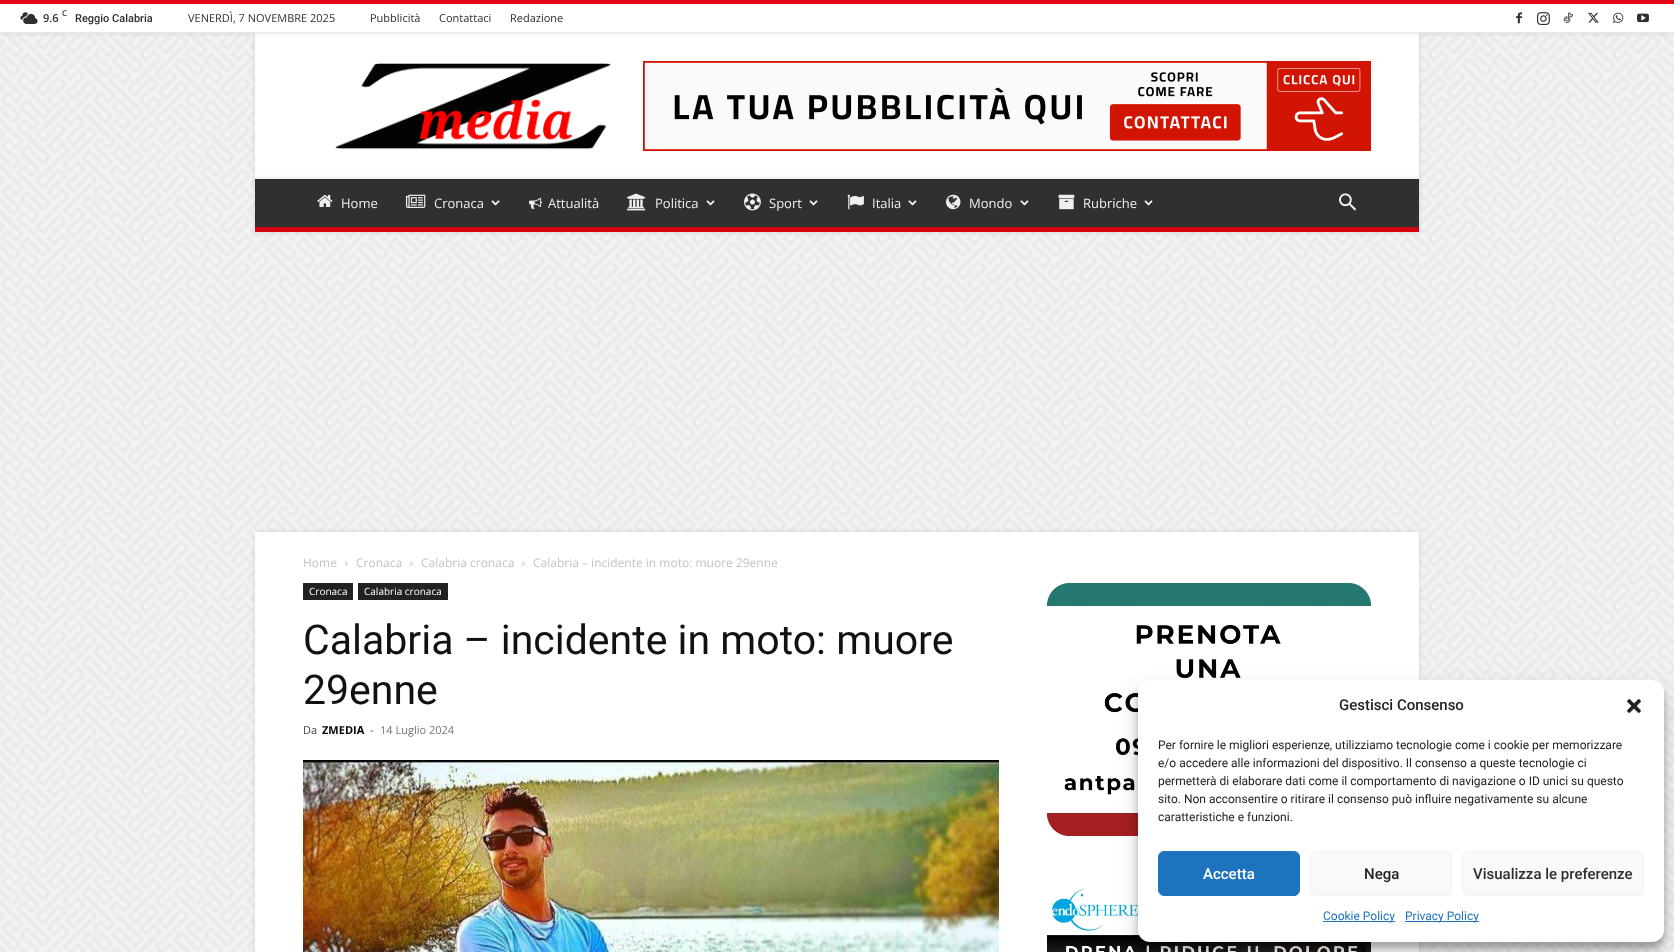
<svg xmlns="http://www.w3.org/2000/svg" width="1674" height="952">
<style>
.a{font:600 11px Open Sans;fill:#2f2f2f}
.b{font:600 8px Open Sans;fill:#2f2f2f}
.c{font:500 11px Roboto;fill:#2f2f2f}
.d{font:11px Open Sans;fill:#2f2f2f}
.e{font:13px Open Sans;fill:#efefef}
.f{font:12px Open Sans;fill:#c3c3c3}
.g{font:10px Open Sans;fill:#fff}
.h{font:41px Roboto;fill:#111}
.i{font:11px Open Sans;fill:#444}
.j{font:bold 11px Open Sans;fill:#000}
.k{font:11px Open Sans;fill:#767676}
.l{font:500 15px Roboto;fill:#222}
.m{font:12px Roboto;fill:#222}
.n{font:500 15px Roboto;fill:#fff}
.o{font:500 15px Roboto;fill:#2f2f2f}
.p{font:12px Roboto;fill:#1e73be}
</style>
<rect width="100%" height="100%" fill="#fff"/>
<image href="1.png" x="0" y="33" width="1674" height="919"/>
<path fill="#0000001f" filter="blur(2.5px)" d="M255 33h1164v146H255z"/>
<path fill="#fff" d="M255 33h1164v146H255z"/>
<path fill="#0000001f" filter="blur(2.5px)" d="M0 0h1674v33H0z"/>
<path fill="#fff" d="M0 4h1674v28H0z"/>
<path fill="#e30513" d="M0 0h1674v4H0z"/>
<path fill="#e9e9e9" d="M0 32h1674v1H0z"/>
<image href="2.png" x="20" y="12" width="18" height="12"/>
<image href="3.png" x="1516" y="12" width="6" height="12"/>
<image href="4.png" x="1537" y="12" width="13" height="13"/>
<image href="5.png" x="1563" y="12" width="10" height="11"/>
<image href="6.png" x="1588" y="12" width="11" height="11"/>
<image href="7.png" x="1613" y="12" width="11" height="11"/>
<image href="8.png" x="1637" y="13" width="12" height="10"/>
<image href="9.png" x="335" y="63" width="276" height="87"/>
<image href="10.png" x="643" y="61" width="728" height="90"/>
<path fill="#0000001f" filter="blur(2.5px)" d="M255 179h1164v53H255z"/>
<path fill="#303030" d="M255 179h1164v48H255z"/>
<image href="11.png" x="317" y="194" width="16" height="13"/>
<image href="12.png" x="406" y="194" width="20" height="14"/>
<image href="13.png" x="491" y="200" width="9" height="6"/>
<image href="14.png" x="529" y="197" width="13" height="12"/>
<image href="15.png" x="627" y="193" width="19" height="18"/>
<image href="13.png" x="706" y="200" width="9" height="6"/>
<image href="16.png" x="744" y="193" width="17" height="18"/>
<image href="13.png" x="809" y="200" width="9" height="6"/>
<image href="17.png" x="847" y="194" width="17" height="16"/>
<image href="13.png" x="908" y="200" width="9" height="6"/>
<image href="18.png" x="946" y="194" width="15" height="16"/>
<image href="13.png" x="1020" y="200" width="9" height="6"/>
<image href="19.png" x="1058" y="194" width="17" height="16"/>
<image href="13.png" x="1144" y="200" width="9" height="6"/>
<image href="20.png" x="1339" y="193" width="17" height="18"/>
<path fill="#e30513" d="M255 227h1164v5H255z"/>
<image href="21.png" x="255" y="227" width="1164" height="5"/>
<path fill="#0000001f" filter="blur(2.5px)" d="M255 532h1164v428H255z"/>
<path fill="#fff" d="M255 532h1164v420H255z"/>
<image href="22.png" x="345" y="561" width="3" height="5"/>
<image href="22.png" x="410" y="561" width="3" height="5"/>
<image href="22.png" x="522" y="561" width="3" height="5"/>
<path fill="#222" d="M303 583h50v17H303z"/>
<path fill="#222" d="M358 583h90v17H358z"/>
<image href="23.png" x="303" y="760" width="696" height="192"/>
<image href="24.png" x="1047" y="583" width="324" height="253"/>
<image href="25.png" x="1047" y="884" width="324" height="68"/>
<rect fill="#0000003b" filter="blur(3px)" x="1138" y="686" width="526" height="262" rx="12"/>
<rect fill="#00000030" filter="blur(10px)" x="1138" y="690" width="526" height="262" rx="12"/>
<rect fill="#fff" x="1138" y="680" width="526" height="262" rx="12"/>
<image href="26.png" x="1627" y="699" width="14" height="14"/>
<rect fill="#1e73be" stroke="#1e73be" x="1158.5" y="851.5" width="141" height="44" rx="5.5"/>
<rect fill="#f9f9f9" stroke="#f2f2f2" x="1310.5" y="851.5" width="141" height="44" rx="5.5"/>
<rect fill="#f9f9f9" stroke="#f2f2f2" x="1462.5" y="851.5" width="181" height="44" rx="5.5"/>
<path fill="#1e73be" d="M1323 921h72v1H1323z"/>
<path fill="#1e73be" d="M1405 921h74v1H1405z"/>
<text class="a" x="43" y="22">9.6</text>
<text class="b" x="62" y="16">C</text>
<text class="c" x="75" y="22">Reggio Calabria</text>
<text class="d" x="188" y="22">VENERDÌ, 7 NOVEMBRE 2025</text>
<text class="d" x="370" y="22">Pubblicità</text>
<text class="d" x="439" y="22">Contattaci</text>
<text class="d" x="510" y="22">Redazione</text>
<text class="e" x="341" y="208">Home</text>
<text class="e" x="434" y="208">Cronaca</text>
<text class="e" x="548" y="208">Attualità</text>
<text class="e" x="655" y="208">Politica</text>
<text class="e" x="769" y="208">Sport</text>
<text class="e" x="872" y="208">Italia</text>
<text class="e" x="969" y="208">Mondo</text>
<text class="e" x="1083" y="208">Rubriche</text>
<text class="f" x="303" y="567">Home</text>
<text class="f" x="356" y="567">Cronaca</text>
<text class="f" x="421" y="567">Calabria cronaca</text>
<text class="f" x="533" y="567">Calabria – incidente in moto: muore 29enne</text>
<text class="g" x="309" y="595">Cronaca</text>
<text class="g" x="364" y="595">Calabria cronaca</text>
<text class="h" x="303" y="654">Calabria – incidente in moto: muore</text>
<text class="h" x="303" y="704">29enne</text>
<text class="i" x="303" y="734">Da</text>
<text class="j" x="322" y="734">ZMEDIA</text>
<text class="i" x="370" y="734">-</text>
<text class="k" x="380" y="734">14 Luglio 2024</text>
<text class="l" x="1339" y="710">Gestisci Consenso</text>
<text class="m" x="1158" y="749">Per fornire le migliori esperienze, utilizziamo tecnologie come i cookie per memorizzare</text>
<text class="m" x="1158" y="767">e/o accedere alle informazioni del dispositivo. Il consenso a queste tecnologie ci</text>
<text class="m" x="1158" y="785">permetterà di elaborare dati come il comportamento di navigazione o ID unici su questo</text>
<text class="m" x="1158" y="803">sito. Non acconsentire o ritirare il consenso può influire negativamente su alcune</text>
<text class="m" x="1158" y="821">caratteristiche e funzioni.</text>
<text class="n" x="1203" y="879">Accetta</text>
<text class="l" x="1364" y="879">Nega</text>
<text class="o" x="1473" y="879">Visualizza le preferenze</text>
<text class="p" x="1323" y="920">Cookie Policy</text>
<text class="p" x="1405" y="920">Privacy Policy</text>
</svg>
